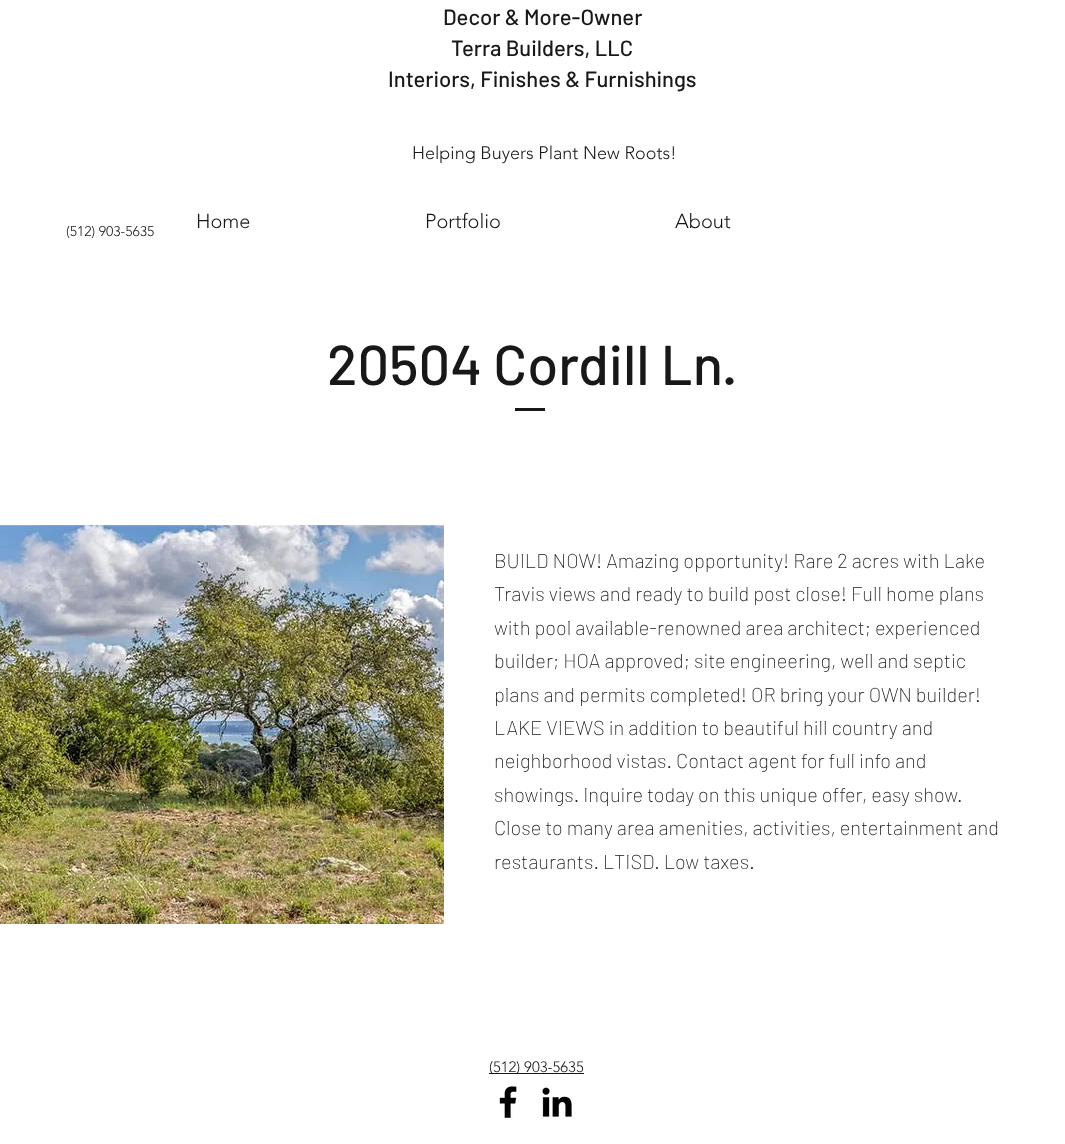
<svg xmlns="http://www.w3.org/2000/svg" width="1065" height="1144">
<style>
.a{font:500 22px Barlow;fill:#181818}
.b{font:300 18px 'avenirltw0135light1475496';fill:#181818}
.c{font:300 20px 'avenirltw0135light1475496';fill:#181818}
.d{font:300 14px 'avenirltw0135light1475496';fill:#181818}
.e{font:500 56px Barlow;fill:#181818}
.f{font:200 20px Barlow;fill:#181818}
.g{font:300 15px 'avenirltw0135light1475496';fill:#181818}
</style>
<rect width="100%" height="100%" fill="#fff"/>
<path fill="#181818" d="M515 408h30v3H515z"/>
<image href="1.png" x="0" y="525" width="444" height="399"/>
<path fill="#181818" d="M489 1073h95v1H489z"/>
<image href="2.png" x="499" y="1086" width="18" height="32"/>
<image href="3.png" x="542" y="1087" width="30" height="30"/>
<text class="a" x="443" y="25">Decor &amp; More-Owner</text>
<text class="a" x="451" y="56">Terra Builders, LLC</text>
<text class="a" x="388" y="87">Interiors, Finishes &amp; Furnishings</text>
<text class="b" x="412" y="159">Helping Buyers Plant New Roots!</text>
<text class="c" x="196" y="228">Home</text>
<text class="c" x="425" y="228">Portfolio</text>
<text class="c" x="675" y="228">About</text>
<text class="d" x="66" y="236">(512) 903-5635</text>
<text class="e" x="327" y="385">20504 Cordill Ln.</text>
<text class="f" x="494" y="568">BUILD NOW! Amazing opportunity! Rare 2 acres with Lake</text>
<text class="f" x="494" y="601">Travis views and ready to build post close! Full home plans</text>
<text class="f" x="494" y="635">with pool available-renowned area architect; experienced</text>
<text class="f" x="494" y="668">builder; HOA approved; site engineering, well and septic</text>
<text class="f" x="494" y="702">plans and permits completed! OR bring your OWN builder!</text>
<text class="f" x="494" y="735">LAKE VIEWS in addition to beautiful hill country and</text>
<text class="f" x="494" y="768">neighborhood vistas. Contact agent for full info and</text>
<text class="f" x="494" y="802">showings. Inquire today on this unique offer, easy show.</text>
<text class="f" x="494" y="835">Close to many area amenities, activities, entertainment and</text>
<text class="f" x="494" y="869">restaurants. LTISD. Low taxes.</text>
<text class="g" x="489" y="1072">(512) 903-5635</text>
</svg>
